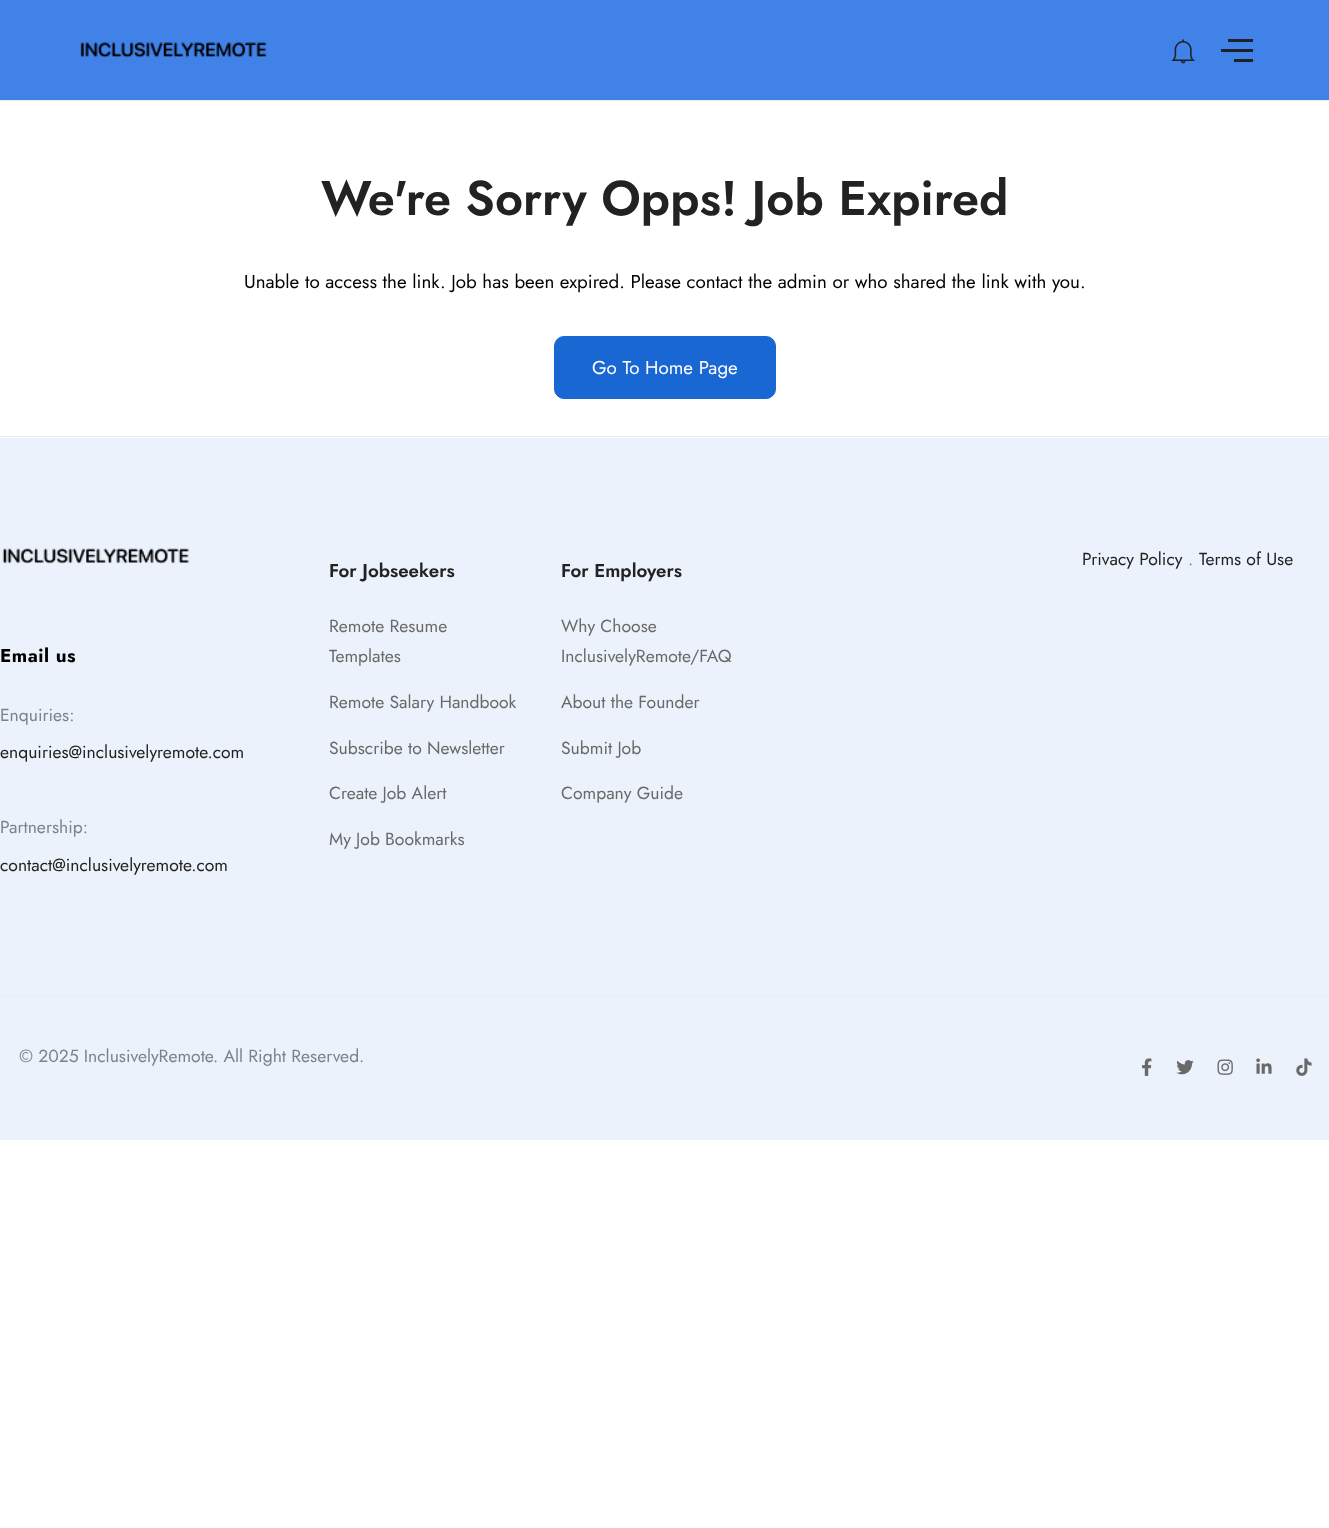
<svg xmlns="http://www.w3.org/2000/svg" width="1329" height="1528">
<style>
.a{font:600 48.75px Jost;fill:#222}
.b{font:18.75px Jost;fill:#000}
.c{font:18.75px Jost;fill:#fff}
.d{font:17.5px Jost;fill:#222}
.e{font:17.5px Jost;fill:#77838f}
.f{font:bold 18.75px Jost;letter-spacing:0.5px;fill:#000}
.g{font:600 18.75px Jost;fill:#222}
.h{font:17.5px Jost;fill:#696969}
</style>
<rect width="100%" height="100%" fill="#fff"/>
<path fill="#4182e8" d="M0 0h1329v100H0z"/>
<path fill="#ecedf2" d="M0 100h1329v1H0z"/>
<image href="1.png" x="80" y="42" width="187" height="16"/>
<image href="2.png" x="1171" y="39" width="24" height="25"/>
<path fill="#202124" d="M1228 39h25v3H1228z"/>
<path fill="#202124" d="M1221 49h32v3H1221z"/>
<path fill="#202124" d="M1234 59h19v3H1234z"/>
<rect fill="#1967d2" stroke="#1967d2" x="554.5" y="336.5" width="221" height="62" rx="9.5"/>
<path fill="#ecf2fc" d="M0 438h1329v557H0z"/>
<path fill="#ecedf2" d="M0 436h1329v1H0z"/>
<image href="3.png" x="2" y="548" width="187" height="16"/>
<path fill="#ecf2fc" d="M0 996h1329v144H0z"/>
<path fill="#ecedf2" d="M0 995h1329v1H0z"/>
<image href="4.png" x="1142" y="1058" width="10" height="18"/>
<image href="5.png" x="1176" y="1060" width="18" height="15"/>
<image href="6.png" x="1217" y="1059" width="16" height="16"/>
<image href="7.png" x="1256" y="1058" width="16" height="16"/>
<image href="8.png" x="1296" y="1058" width="16" height="18"/>
<text class="a" x="321" y="215">We're Sorry Opps! Job Expired</text>
<text class="b" x="244" y="288">Unable to access the link. Job has been expired. Please contact the admin or who shared the link with you.</text>
<text class="c" x="592" y="374">Go To Home Page</text>
<text class="d" x="1082" y="565">Privacy Policy</text>
<text class="e" x="1188" y="565">.</text>
<text class="d" x="1199" y="565">Terms of Use</text>
<text class="f" x="0" y="662">Email us</text>
<text class="e" x="0" y="721">Enquiries:</text>
<text class="d" x="0" y="758">enquiries@inclusivelyremote.com</text>
<text class="e" x="0" y="833">Partnership:</text>
<text class="d" x="0" y="871">contact@inclusivelyremote.com</text>
<text class="g" x="329" y="577">For Jobseekers</text>
<text class="h" x="329" y="632">Remote Resume</text>
<text class="h" x="329" y="662">Templates</text>
<text class="h" x="329" y="708">Remote Salary Handbook</text>
<text class="h" x="329" y="754">Subscribe to Newsletter</text>
<text class="h" x="329" y="799">Create Job Alert</text>
<text class="h" x="329" y="845">My Job Bookmarks</text>
<text class="g" x="561" y="577">For Employers</text>
<text class="h" x="561" y="632">Why Choose</text>
<text class="h" x="561" y="662">InclusivelyRemote/FAQ</text>
<text class="h" x="561" y="708">About the Founder</text>
<text class="h" x="561" y="754">Submit Job</text>
<text class="h" x="561" y="799">Company Guide</text>
<text class="e" x="19" y="1062">© 2025 InclusivelyRemote. All Right Reserved.</text>
</svg>
